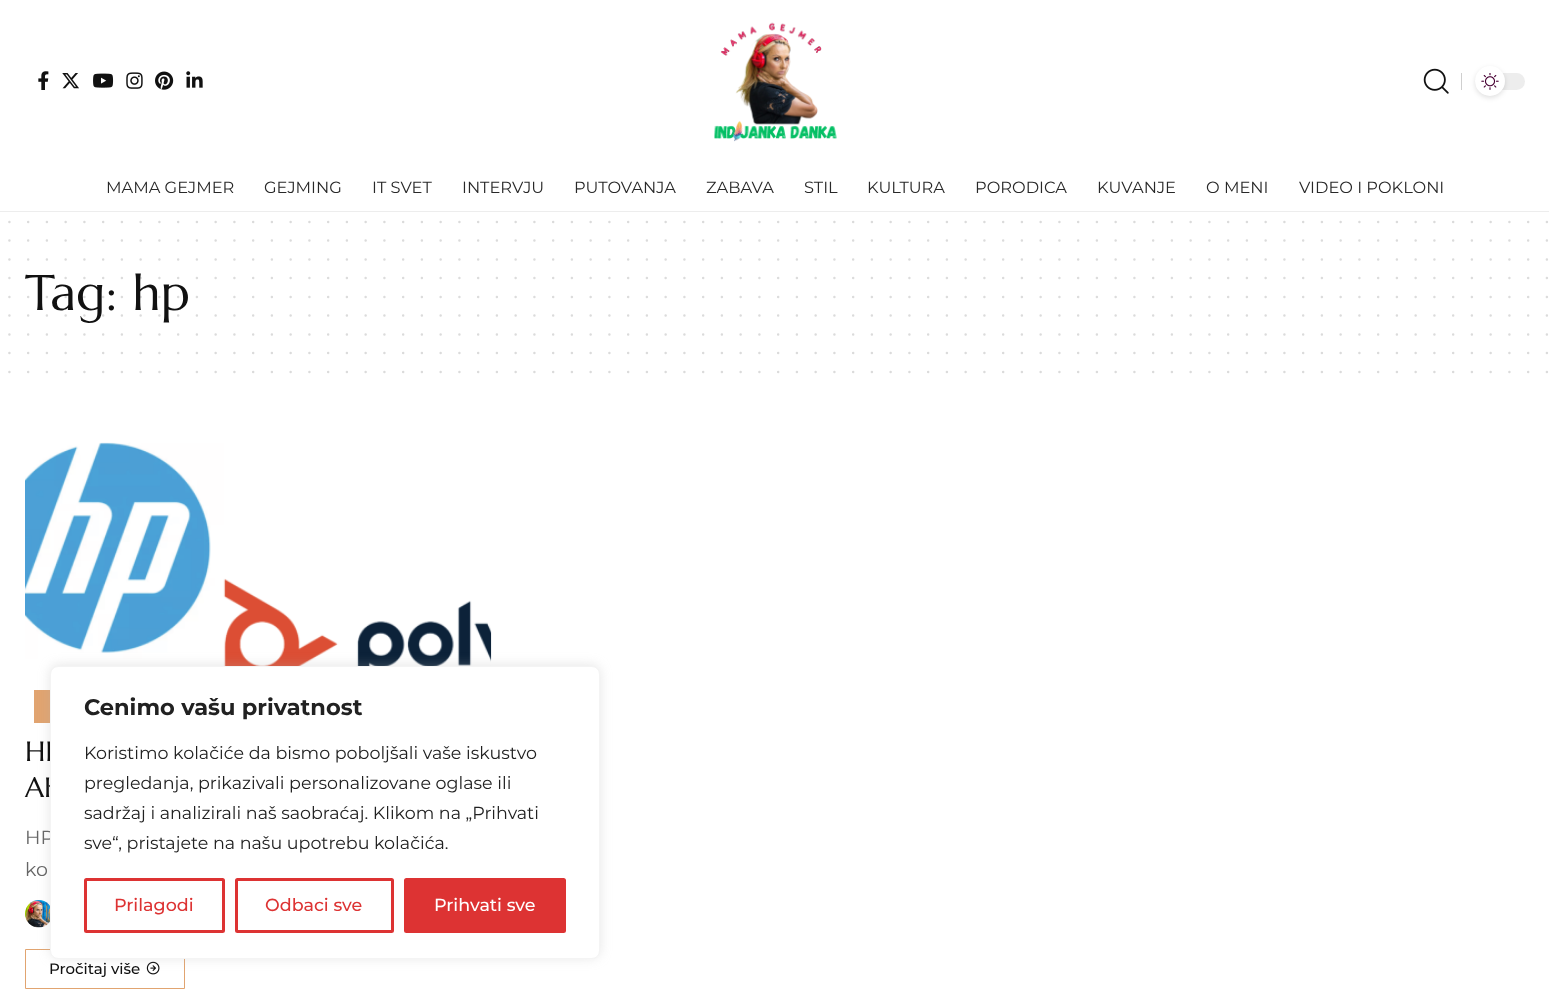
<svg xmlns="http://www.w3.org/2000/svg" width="1549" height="1008">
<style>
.a{font:16.25px Montserrat;fill:#282828}
.b{font:50px Marcellus;fill:#111}
.c{font:28px Marcellus;fill:#111}
.d{font:19px Montserrat;fill:#666}
.e{font:500 15px Montserrat;fill:#111}
.f{font:bold 22.5px Montserrat;fill:#212121}
.g{font:17.5px Montserrat;fill:#212121}
.h{font:500 17.5px Montserrat;fill:#d33}
.i{font:500 17.5px Montserrat;fill:#fff}
</style>
<rect width="100%" height="100%" fill="#fff"/>
<image href="1.png" x="38" y="71" width="11" height="19"/>
<image href="2.png" x="62" y="73" width="17" height="16"/>
<image href="3.png" x="93" y="73" width="21" height="15"/>
<image href="4.png" x="126" y="72" width="17" height="17"/>
<image href="5.png" x="155" y="71" width="19" height="19"/>
<image href="6.png" x="186" y="71" width="17" height="17"/>
<image href="7.png" x="714" y="22" width="123" height="120"/>
<image href="8.png" x="1423" y="68" width="26" height="26"/>
<path fill="#cfcfcf" d="M1461 73h1v17H1461z"/>
<rect fill="#ededed" x="1475" y="73" width="50" height="17" rx="8.5"/>
<rect fill="#0000001f" filter="blur(2.5px)" x="1475" y="68" width="30" height="30" rx="15"/>
<circle fill="#fff" cx="1490" cy="81" r="15"/>
<image href="9.png" x="1481" y="73" width="18" height="17"/>
<path fill="#ededed" d="M0 211h1549v1H0z"/>
<path fill="none" stroke="#dbdbdb" stroke-width="2.5" stroke-linecap="round" stroke-dasharray="0 18.75" d="M9.4 221.9h1537.7"/>
<path fill="none" stroke="#dbdbdb" stroke-width="2.5" stroke-linecap="round" stroke-dasharray="0 18.75" d="M9.4 240.6h1537.7"/>
<path fill="none" stroke="#dbdbdb" stroke-width="2.5" stroke-linecap="round" stroke-dasharray="0 18.75" d="M9.4 259.4h1537.7"/>
<path fill="none" stroke="#dbdbdb" stroke-width="2.5" stroke-linecap="round" stroke-dasharray="0 18.75" d="M9.4 334.4h1537.7"/>
<path fill="none" stroke="#dbdbdb" stroke-width="2.5" stroke-linecap="round" stroke-dasharray="0 18.75" d="M9.4 353.1h1537.7"/>
<path fill="none" stroke="#dbdbdb" stroke-width="2.5" stroke-linecap="round" stroke-dasharray="0 18.75" d="M9.4 371.9h1537.7"/>
<image href="10.png" x="25" y="442" width="467" height="268"/>
<path fill="#e1a470" d="M34 690h16v33H34z"/>
<image href="11.png" x="25" y="900" width="25" height="28"/>
<path fill="none" stroke="#e1a470" d="M25.5 949.5h159v39H25.5z"/>
<image href="12.png" x="146" y="961" width="14" height="14"/>
<rect fill="#acabab4d" filter="blur(6px)" x="50" y="665" width="550" height="293" rx="8"/>
<text class="a" x="106" y="193">MAMA GEJMER</text>
<text class="a" x="264" y="193">GEJMING</text>
<text class="a" x="372" y="193">IT SVET</text>
<text class="a" x="462" y="193">INTERVJU</text>
<text class="a" x="574" y="193">PUTOVANJA</text>
<text class="a" x="706" y="193">ZABAVA</text>
<text class="a" x="804" y="193">STIL</text>
<text class="a" x="867" y="193">KULTURA</text>
<text class="a" x="975" y="193">PORODICA</text>
<text class="a" x="1097" y="193">KUVANJE</text>
<text class="a" x="1206" y="193">O MENI</text>
<text class="a" x="1299" y="193">VIDEO I POKLONI</text>
<text class="b" x="25" y="310">Tag: hp</text>
<path fill="none" stroke="#dbdbdb" stroke-width="2.5" stroke-linecap="round" stroke-dasharray="0 18.75" d="M9.4 315.6h1537.7"/>
<path fill="none" stroke="#11111126" stroke-width="2.5" stroke-linecap="round" stroke-dasharray="0 18.75" d="M9.4 296.9h1537.7"/>
<path fill="none" stroke="#11111126" stroke-width="2.5" stroke-linecap="round" stroke-dasharray="0 18.75" d="M9.4 278.1h1537.7"/>
<text class="c" x="25" y="761">HI</text>
<text class="c" x="25" y="797">AK</text>
<text class="d" x="25" y="844">HP</text>
<text class="d" x="25" y="876">ko</text>
<text class="e" x="49" y="974">Pročitaj više</text>
<rect fill="#fff" stroke="#f4f4f4" x="50.5" y="666.5" width="549" height="292" rx="7.5"/>
<text class="f" x="84" y="715">Cenimo vašu privatnost</text>
<text class="g" x="84" y="759">Koristimo kolačiće da bismo poboljšali vaše iskustvo</text>
<text class="g" x="84" y="789">pregledanja, prikazivali personalizovane oglase ili</text>
<text class="g" x="84" y="819">sadržaj i analizirali naš saobraćaj. Klikom na „Prihvati</text>
<text class="g" x="84" y="849">sve“, pristajete na našu upotrebu kolačića.</text>
<rect fill="none" stroke="#d33" stroke-width="3" x="85.5" y="879.5" width="138" height="52" rx="1"/>
<text class="h" x="114" y="911">Prilagodi</text>
<rect fill="none" stroke="#d33" stroke-width="3" x="236.5" y="879.5" width="156" height="52" rx="1"/>
<text class="h" x="265" y="911">Odbaci sve</text>
<rect fill="#d33" stroke="#d33" stroke-width="3" x="405.5" y="879.5" width="159" height="52" rx="1"/>
<text class="i" x="434" y="911">Prihvati sve</text>
</svg>
